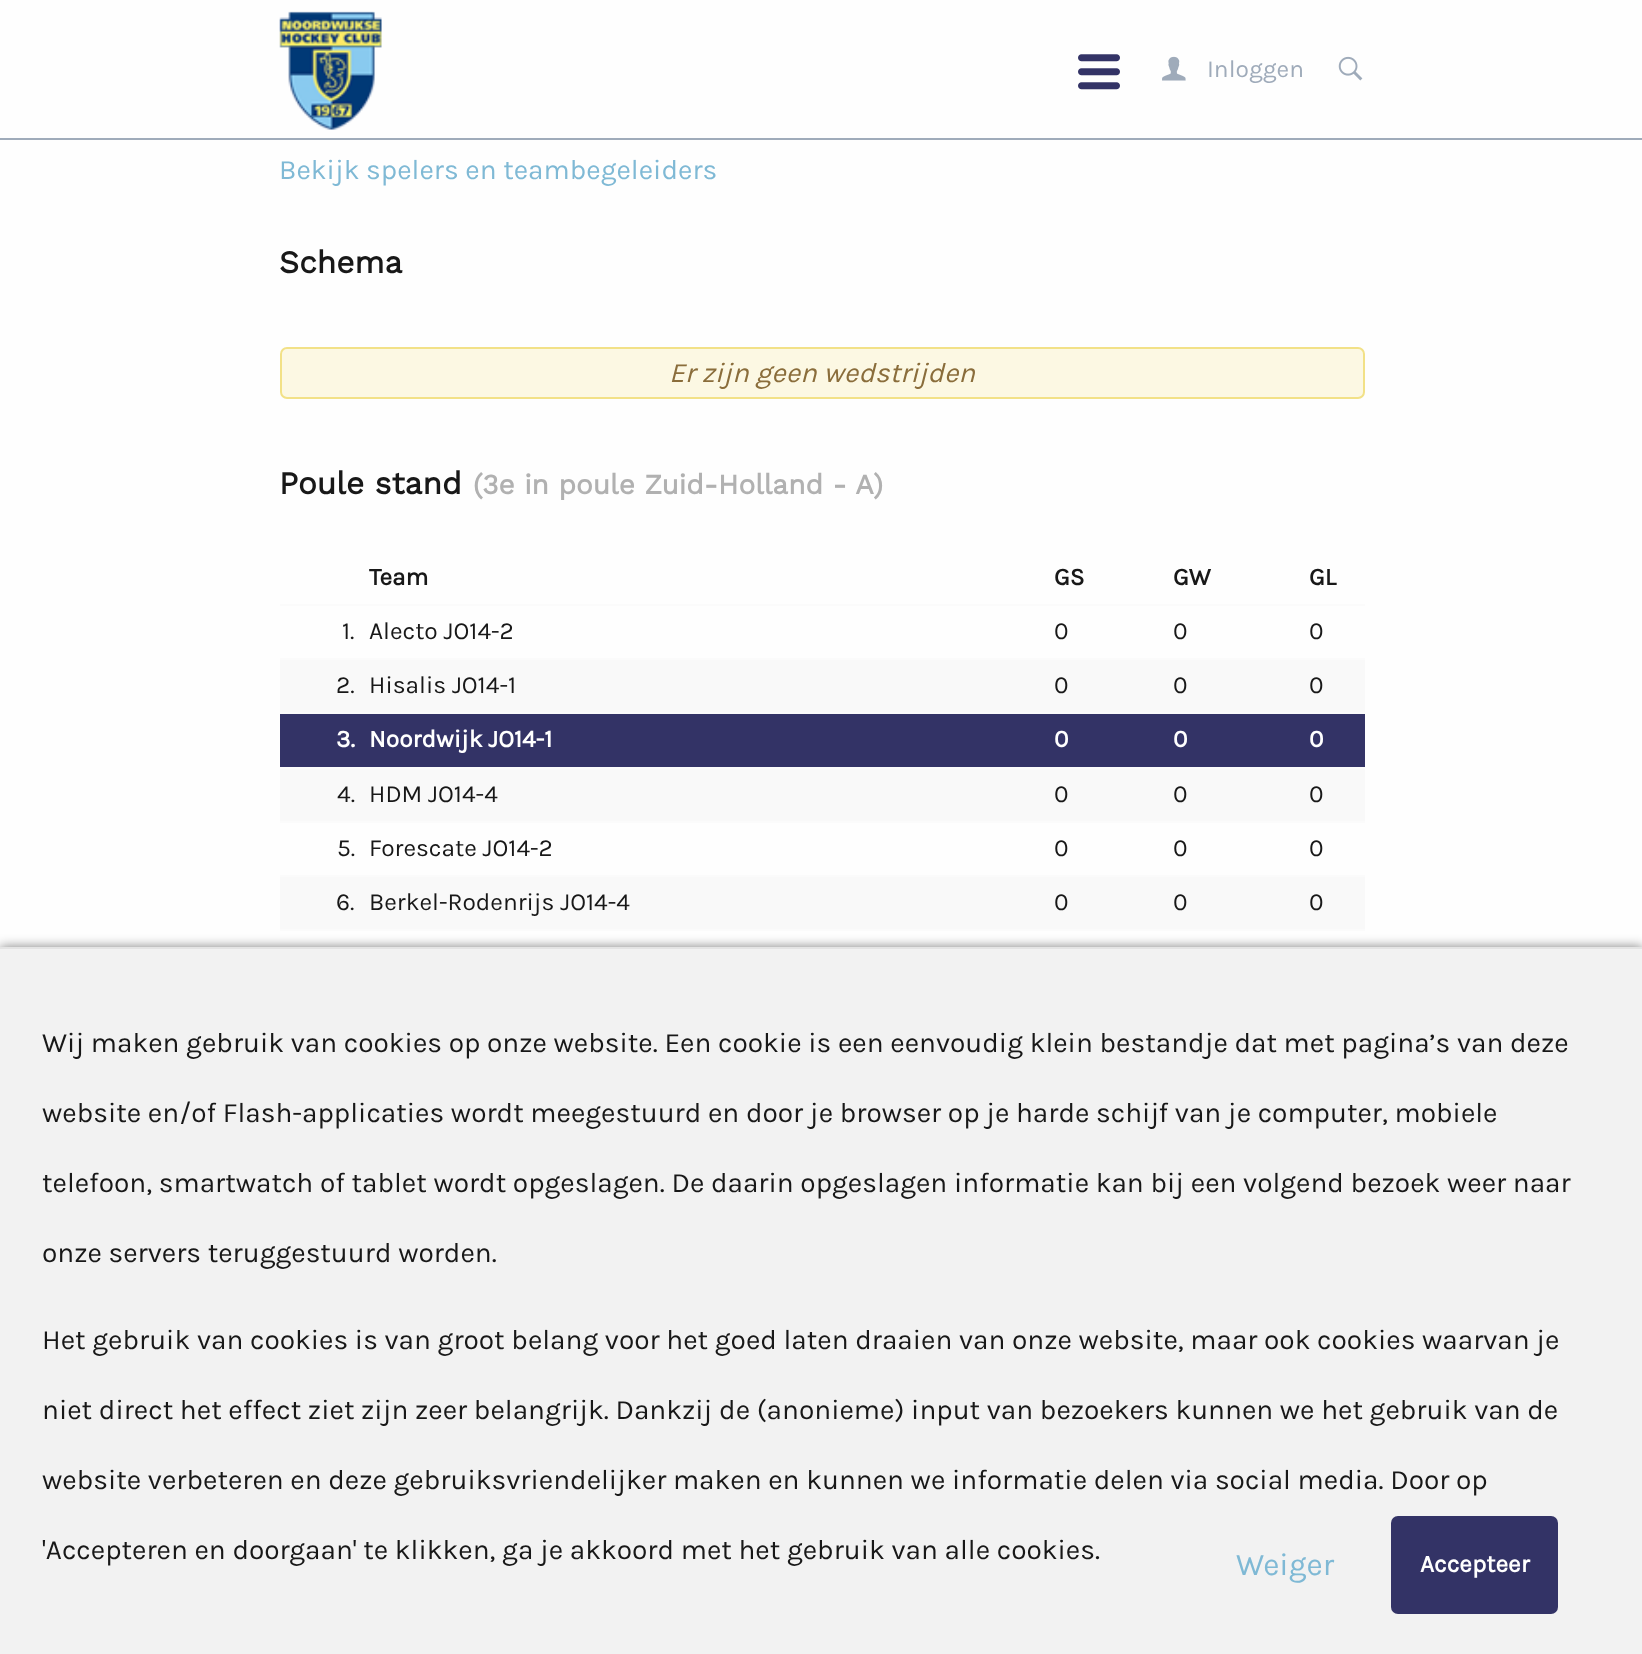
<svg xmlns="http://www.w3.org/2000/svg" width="1642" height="1654">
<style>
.a{font:24.5px Karla;fill:#9fabba}
.b{font:28px Karla;fill:#7fb9d5}
.c{font:bold 31.5px Work Sans;fill:#181818}
.d{font:italic 28px Karla;fill:#8a6d3b}
.e{font:bold 28px Work Sans;fill:#b1b1b1}
.f{font:bold 24.5px Karla;fill:#181818}
.g{font:24.5px Karla;fill:#181818}
.h{font:bold 24.5px Karla;fill:#fff}
.i{font:28px Karla;fill:#181818}
.j{font:31.5px Karla;fill:#7fb9d5}
</style>
<rect width="100%" height="100%" fill="#fefefe"/>
<path fill="#9fabba" d="M0 138h1642v2H0z"/>
<image href="1.png" x="279" y="11" width="103" height="119"/>
<image href="2.png" x="1078" y="54" width="42" height="36"/>
<image href="3.png" x="1162" y="56" width="24" height="25"/>
<image href="4.png" x="1338" y="56" width="25" height="25"/>
<rect fill="#fcf8e3" stroke="#f2e187" stroke-width="2" x="281" y="348" width="1083" height="50" rx="6"/>
<path fill="#fbfbfb" d="M280 604h1085v2H280z"/>
<path fill="#fbfbfb" d="M280 658h1085v2H280z"/>
<path fill="#f9f9f9" d="M280 660h1085v52H280z"/>
<path fill="#fbfbfb" d="M280 712h1085v2H280z"/>
<path fill="#336" d="M280 714h1085v53H280z"/>
<path fill="#fbfbfb" d="M280 767h1085v2H280z"/>
<path fill="#f9f9f9" d="M280 769h1085v52H280z"/>
<path fill="#fbfbfb" d="M280 821h1085v2H280z"/>
<path fill="#fbfbfb" d="M280 875h1085v2H280z"/>
<path fill="#f9f9f9" d="M280 877h1085v52H280z"/>
<path fill="#fbfbfb" d="M280 929h1085v2H280z"/>
<path fill="#00000080" filter="blur(6px)" d="M0 947h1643v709H0z"/>
<path fill="#f2f2f2" d="M0 949h1642v705H0z"/>
<path fill="#e4e4e4" d="M0 947h1642v2H0z"/>
<rect fill="#336" x="1391" y="1516" width="167" height="98" rx="7"/>
<text class="a" x="1207" y="77">Inloggen</text>
<text class="b" x="279" y="179">Bekijk spelers en teambegeleiders</text>
<text class="c" x="279" y="273">Schema</text>
<text class="d" x="669" y="382">Er zijn geen wedstrijden</text>
<text class="c" x="279" y="494">Poule stand</text>
<text class="e" x="473" y="494">(3e in poule Zuid-Holland - A)</text>
<text class="f" x="369" y="585">Team</text>
<text class="f" x="1054" y="585">GS</text>
<text class="f" x="1173" y="585">GW</text>
<text class="f" x="1309" y="585">GL</text>
<text class="g" x="342" y="639">1.</text>
<text class="g" x="369" y="639">Alecto JO14-2</text>
<text class="g" x="1054" y="639">0</text>
<text class="g" x="1173" y="639">0</text>
<text class="g" x="1309" y="639">0</text>
<text class="g" x="336" y="693">2.</text>
<text class="g" x="369" y="693">Hisalis JO14-1</text>
<text class="g" x="1054" y="693">0</text>
<text class="g" x="1173" y="693">0</text>
<text class="g" x="1309" y="693">0</text>
<text class="h" x="336" y="747">3.</text>
<text class="h" x="369" y="747">Noordwijk JO14-1</text>
<text class="h" x="1054" y="747">0</text>
<text class="h" x="1173" y="747">0</text>
<text class="h" x="1309" y="747">0</text>
<text class="g" x="337" y="802">4.</text>
<text class="g" x="369" y="802">HDM JO14-4</text>
<text class="g" x="1054" y="802">0</text>
<text class="g" x="1173" y="802">0</text>
<text class="g" x="1309" y="802">0</text>
<text class="g" x="337" y="856">5.</text>
<text class="g" x="369" y="856">Forescate JO14-2</text>
<text class="g" x="1054" y="856">0</text>
<text class="g" x="1173" y="856">0</text>
<text class="g" x="1309" y="856">0</text>
<text class="g" x="336" y="910">6.</text>
<text class="g" x="369" y="910">Berkel-Rodenrijs JO14-4</text>
<text class="g" x="1054" y="910">0</text>
<text class="g" x="1173" y="910">0</text>
<text class="g" x="1309" y="910">0</text>
<text class="i" x="42" y="1052">Wij maken gebruik van cookies op onze website. Een cookie is een eenvoudig klein bestandje dat met pagina’s van deze</text>
<text class="i" x="42" y="1122">website en/of Flash-applicaties wordt meegestuurd en door je browser op je harde schijf van je computer, mobiele</text>
<text class="i" x="42" y="1192">telefoon, smartwatch of tablet wordt opgeslagen. De daarin opgeslagen informatie kan bij een volgend bezoek weer naar</text>
<text class="i" x="42" y="1262">onze servers teruggestuurd worden.</text>
<text class="i" x="42" y="1349">Het gebruik van cookies is van groot belang voor het goed laten draaien van onze website, maar ook cookies waarvan je</text>
<text class="i" x="42" y="1419">niet direct het effect ziet zijn zeer belangrijk. Dankzij de (anonieme) input van bezoekers kunnen we het gebruik van de</text>
<text class="i" x="42" y="1489">website verbeteren en deze gebruiksvriendelijker maken en kunnen we informatie delen via social media. Door op</text>
<text class="i" x="42" y="1559">'Accepteren en doorgaan' te klikken, ga je akkoord met het gebruik van alle cookies.</text>
<text class="j" x="1236" y="1575">Weiger</text>
<text class="h" x="1420" y="1572">Accepteer</text>
</svg>
